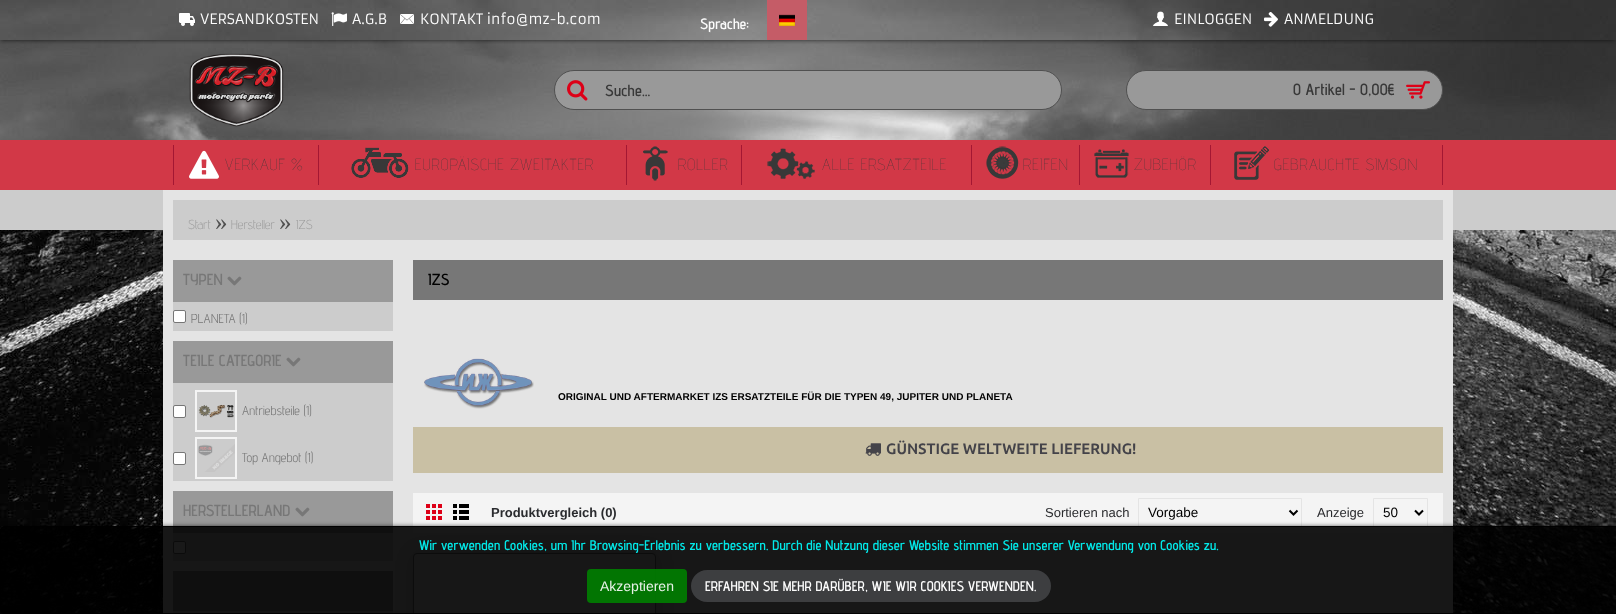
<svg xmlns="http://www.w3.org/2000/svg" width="1616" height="614">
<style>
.a{font:14px Armata;fill:#fcfcfc}
.b{font:600 15px Advent Pro;fill:#fcfcfc}
.c{font:600 16px Advent Pro;fill:#383838}
.d{font:100 16px Advent Pro;letter-spacing:1px;fill:#383838}
.e{font:300 13px Advent Pro;fill:#999}
.f{font:25px Liberation Serif;fill:#505050}
.g{font:600 16px Advent Pro;fill:#777}
.h{font:13px Advent Pro;fill:#777}
.i{font:600 16px Advent Pro;fill:#000}
.j{font:bold 10px Liberation Sans;fill:#000}
.k{font:bold 15px Ubuntu;fill:#444349}
.l{font:bold 13px Liberation Sans;fill:#2a2b2e}
.m{font:13px Liberation Sans;fill:#2a2b2e}
.n{font:13.5px Liberation Sans;fill:#000}
.o{font:600 14px Advent Pro;fill:#02e8e8}
.p{font:14px Liberation Sans;fill:#e6f1e6}
.q{font:600 14px Advent Pro;fill:#fcfcfc}
</style>
<defs>
<clipPath id="clip1"><path d="M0 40h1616v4H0z"/></clipPath>
<clipPath id="clip2"><path d="M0 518h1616v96h-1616zm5 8h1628c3 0 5 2 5 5v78c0 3-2 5-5 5h-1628c-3 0-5-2-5-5v-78c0-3 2-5 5-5z" clip-rule="evenodd"/></clipPath>
</defs>
<rect width="100%" height="100%" fill="#fff"/>
<image href="1.png" x="0" y="0" width="1616" height="40"/>
<image href="18.png" x="0" y="40" width="1616" height="100"/>
<g clip-path="url(#clip1)">
<path fill="#000000b3" filter="blur(2px)" d="M1 2h1614v38H1z"/>
</g>
<image href="2.png" x="179" y="13" width="16" height="13"/>
<image href="3.png" x="331" y="12" width="16" height="14"/>
<image href="4.png" x="400" y="14" width="14" height="10"/>
<path fill="#c55c67" d="M767 0h40v40H767z"/>
<image href="5.png" x="779" y="14" width="16" height="12"/>
<image href="6.png" x="1153" y="11" width="15" height="15"/>
<image href="7.png" x="1264" y="12" width="14" height="15"/>
<image href="8.png" x="189" y="53" width="95" height="74"/>
<rect fill="#999" stroke="#505050" x="554.5" y="70.5" width="507" height="39" rx="19.5"/>
<image href="9.png" x="567" y="80" width="21" height="21"/>
<rect fill="#999" stroke="#505050" x="1126.5" y="70.5" width="316" height="39" rx="19.5"/>
<image href="10.png" x="1406" y="81" width="24" height="18"/>
<path fill="#d23847" d="M0 140h1616v50H0z"/>
<path fill="#a41733" d="M173 145h1v40H173z"/>
<image href="11.png" x="189" y="150" width="30" height="29"/>
<path fill="#a41733" d="M318 145h1v40H318z"/>
<image href="12.png" x="351" y="147" width="58" height="31"/>
<path fill="#a41733" d="M626 145h1v40H626z"/>
<image href="13.png" x="643" y="146" width="25" height="35"/>
<path fill="#a41733" d="M741 145h1v40H741z"/>
<image href="14.png" x="767" y="148" width="48" height="31"/>
<path fill="#a41733" d="M971 145h1v40H971z"/>
<image href="15.png" x="986" y="146" width="34" height="33"/>
<path fill="#a41733" d="M1079 145h1v40H1079z"/>
<image href="16.png" x="1094" y="149" width="35" height="29"/>
<path fill="#a41733" d="M1442 145h1v40H1442z"/>
<path fill="#a41733" d="M1210 145h1v40H1210z"/>
<image href="17.png" x="1234" y="146" width="35" height="34"/>
<image href="19.png" x="0" y="230" width="1616" height="384"/>
<path fill="#ccc" d="M0 190h1616v40H0z"/>
<path fill="#e4e4e4" d="M163 190h1290v424H163z"/>
<path fill="#ccc" d="M173 200h1270v40H173z"/>
<path fill="#ccc" d="M173 302h220v29H173z"/>
<path fill="#999" d="M173 260h220v42H173z"/>
<image href="20.png" x="227" y="276" width="15" height="10"/>
<rect fill="#fff" stroke="#767676" x="173.5" y="310.5" width="12" height="12" rx="1.5"/>
<path fill="#ccc" d="M173 383h220v98H173z"/>
<path fill="#999" d="M173 341h220v42H173z"/>
<image href="20.png" x="286" y="357" width="15" height="10"/>
<rect fill="#fff" stroke="#767676" x="173.5" y="405.5" width="12" height="12" rx="1.5"/>
<path fill="none" stroke="#f4f4f4" stroke-width="2" d="M196 391h40v40H196z"/>
<image href="21.png" x="198" y="404" width="36" height="14"/>
<rect fill="#fff" stroke="#767676" x="173.5" y="452.5" width="12" height="12" rx="1.5"/>
<path fill="none" stroke="#f4f4f4" stroke-width="2" d="M196 438h40v40H196z"/>
<image href="22.png" x="198" y="444" width="37" height="28"/>
<path fill="#ccc" d="M173 533h220v28H173z"/>
<path fill="#999" d="M173 491h220v42H173z"/>
<image href="20.png" x="295" y="507" width="15" height="10"/>
<rect fill="#fff" stroke="#767676" x="173.5" y="541.5" width="12" height="12" rx="1.5"/>
<path fill="#ccc" d="M173 611h220v3H173z"/>
<path fill="#999" d="M173 571h220v40H173z"/>
<path fill="#777" d="M413 260h1030v40H413z"/>
<image href="23.png" x="424" y="358" width="110" height="51"/>
<path fill="#c9c0a4" d="M413 427h1030v46H413z"/>
<image href="24.png" x="865" y="443" width="16" height="13"/>
<path fill="#f4f4f4" d="M413 493h1030v40H413z"/>
<image href="25.png" x="426" y="504" width="16" height="16"/>
<image href="26.png" x="453" y="504" width="16" height="16"/>
<path fill="none" stroke="#e4e4e4" d="M1138.5 498.5h163v28H1138.5z"/>
<path fill="none" stroke="#000" stroke-width="2" d="M1289.5 510.5l4 4l4-4"/>
<path fill="none" stroke="#e4e4e4" d="M1373.5 498.5h54v28H1373.5z"/>
<path fill="none" stroke="#000" stroke-width="2" d="M1415 510.5l4 4l4-4"/>
<rect fill="#00000033" filter="blur(10px)" x="413" y="553" width="243" height="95" rx="4"/>
<rect fill="#e4e4e4" stroke="#777" x="413.5" y="553.5" width="242" height="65" rx="3.5"/>
<g clip-path="url(#clip2)">
<rect fill="#000000e6" filter="blur(2.5px)" y="527" width="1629" height="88" rx="5"/>
</g>
<rect fill="#000000e6" y="526" width="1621" height="88" rx="5"/>
<rect fill="none" stroke="#000000e6" x="0.5" y="526.5" width="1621" height="87" rx="4.5"/>
<rect fill="#008000e6" x="587" y="569" width="100" height="34" rx="4"/>
<rect fill="#3d3e40" x="691" y="570" width="360" height="32" rx="16"/>
<text class="a" x="200" y="24">VERSANDKOSTEN</text>
<text class="a" x="352" y="24">A.G.B</text>
<text class="a" x="420" y="24">KONTAKT info@mz-b.com</text>
<text class="b" x="700" y="29">Sprache:</text>
<text class="a" x="1174" y="24">EINLOGGEN</text>
<text class="a" x="1284" y="24">ANMELDUNG</text>
<text class="c" x="605" y="96">Suche...</text>
<text class="c" x="1293" y="95">0 Artikel - 0,00€</text>
<text class="d" x="225" y="170">VERKAUF %</text>
<text class="d" x="415" y="170">EUROPÄISCHE ZWEITAKTER</text>
<text class="d" x="678" y="170">ROLLER</text>
<text class="d" x="822" y="170">ALLE ERSATZTEILE</text>
<text class="d" x="1023" y="170">REIFEN</text>
<text class="d" x="1134" y="170">ZUBEHÖR</text>
<text class="d" x="1274" y="170">GEBRAUCHTE SIMSON</text>
<text class="e" x="188" y="229">Start</text>
<text class="f" x="215" y="230">»</text>
<text class="e" x="231" y="229">Hersteller</text>
<text class="f" x="279" y="230">»</text>
<text class="e" x="296" y="229">IZS</text>
<text class="g" x="183" y="285">TYPEN</text>
<text class="h" x="191" y="323">PLANETA (1)</text>
<text class="g" x="183" y="366">TEILE CATEGORIE</text>
<text class="h" x="242" y="415">Antriebsteile (1)</text>
<text class="h" x="242" y="462">Top Angebot (1)</text>
<text class="g" x="183" y="516">HERSTELLERLAND</text>
<text class="i" x="428" y="285">IZS</text>
<text class="j" x="558" y="400">ORIGINAL UND AFTERMARKET IZS ERSATZTEILE FÜR DIE TYPEN 49, JUPITER UND PLANETA</text>
<text class="k" x="886" y="454">GÜNSTIGE WELTWEITE LIEFERUNG!</text>
<text class="l" x="491" y="517">Produktvergleich (0)</text>
<text class="m" x="1045" y="517">Sortieren nach</text>
<text class="n" x="1148" y="517">Vorgabe</text>
<text class="m" x="1317" y="517">Anzeige</text>
<text class="n" x="1383" y="517">50</text>
<text class="o" x="419" y="550">Wir verwenden Cookies, um Ihr Browsing-Erlebnis zu verbessern. Durch die Nutzung dieser Website stimmen Sie unserer Verwendung von Cookies zu.</text>
<text class="p" x="600" y="591">Akzeptieren</text>
<text class="q" x="705" y="591">ERFAHREN SIE MEHR DARÜBER, WIE WIR COOKIES VERWENDEN.</text>
</svg>
